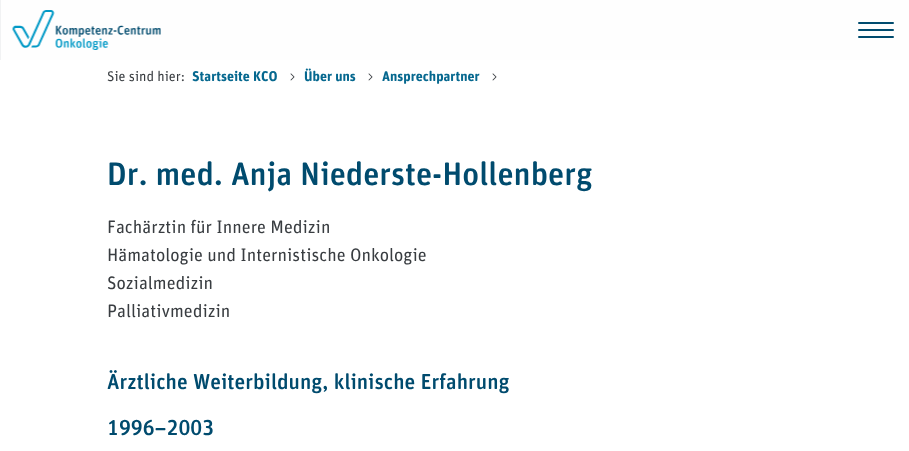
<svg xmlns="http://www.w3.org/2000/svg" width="909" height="451">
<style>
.a{font:14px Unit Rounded;fill:#393d41}
.b{font:bold 14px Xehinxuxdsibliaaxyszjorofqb;fill:#06688f}
.c{font:500 32.5px Unit Rounded;fill:#004b6e}
.d{font:18px Unit Rounded;fill:#393d41}
.e{font:500 21.6px Unit Rounded;fill:#004b6e}
</style>
<rect width="100%" height="100%" fill="#f1f2f3"/>
<path fill="#fff" d="M0 60h909v391H0z"/>
<path fill="#fefefe" d="M1 0h908v60H1z"/>
<image href="1.png" x="12" y="10" width="149" height="40"/>
<rect fill="#004b6e" x="858" y="22" width="36" height="2" rx="1"/>
<rect fill="#004b6e" x="858" y="29" width="36" height="2" rx="1"/>
<rect fill="#004b6e" x="858" y="36" width="36" height="2" rx="1"/>
<image href="2.png" x="290" y="73" width="5" height="8"/>
<image href="2.png" x="368" y="73" width="5" height="8"/>
<image href="2.png" x="492" y="73" width="5" height="8"/>
<text class="a" x="107" y="81">Sie sind hier:</text>
<text class="b" x="192" y="81">Startseite KCO</text>
<text class="b" x="304" y="81">Über uns</text>
<text class="b" x="382" y="81">Ansprechpartner</text>
<text class="c" x="107" y="185">Dr. med. Anja Niederste-Hollenberg</text>
<text class="d" x="107" y="233">Fachärztin für Innere Medizin</text>
<text class="d" x="107" y="261">Hämatologie und Internistische Onkologie</text>
<text class="d" x="107" y="289">Sozialmedizin</text>
<text class="d" x="107" y="317">Palliativmedizin</text>
<text class="e" x="107" y="389">Ärztliche Weiterbildung, klinische Erfahrung</text>
<text class="e" x="107" y="435">1996–2003</text>
</svg>
